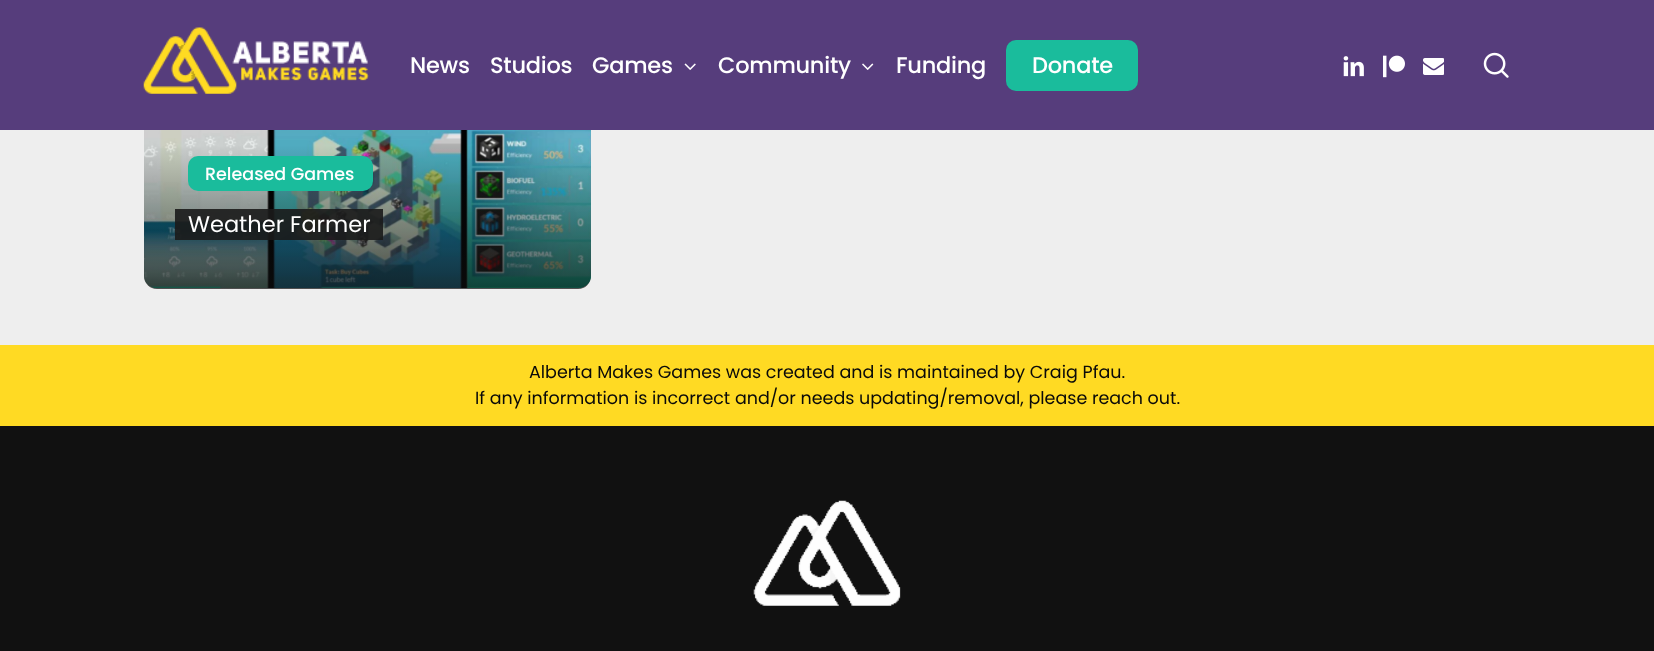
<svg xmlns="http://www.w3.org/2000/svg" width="1654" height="651">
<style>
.a{font:500 22.5px Poppins;letter-spacing:-0.25px;fill:#fff}
.b{font:500 17.5px Poppins;fill:#fff}
.c{font:22.5px Poppins;fill:#fff}
.d{font:17.5px Poppins;fill:#0a0a0a}
</style>
<defs>
<linearGradient id="g1" gradientUnits="userSpaceOnUse" x1="368" y1="145" x2="368" y2="289"><stop offset="0" stop-color="#0f0f0f" stop-opacity="0"/><stop offset="1" stop-color="#0f0f0f" stop-opacity="0.68"/></linearGradient>
</defs>
<rect width="100%" height="100%" fill="#eee"/>
<rect fill="#d6d6d6" x="144" y="28" width="447" height="261" rx="13"/>
<path fill="#563d7c" d="M0 0h1654v130H0z"/>
<image href="1.png" x="143" y="27" width="226" height="67"/>
<image href="2.png" x="684" y="63" width="12" height="7"/>
<image href="3.png" x="862" y="63" width="12" height="7"/>
<rect fill="#1abc9c" x="1006" y="40" width="132" height="51" rx="10"/>
<image href="4.png" x="1343" y="56" width="21" height="21"/>
<image href="5.png" x="1383" y="55" width="22" height="23"/>
<image href="6.png" x="1423" y="58" width="21" height="17"/>
<image href="7.png" x="1483" y="52" width="26" height="26"/>
<image href="8.png" x="144" y="130" width="447" height="158"/>
<rect fill="url(#g1)" x="144" y="145" width="447" height="144" rx="13"/>
<rect fill="#1abc9c" x="188" y="156" width="185" height="35" rx="10"/>
<path fill="#1b1b1be6" d="M175 209h13v31H175z"/>
<path fill="#1b1b1be6" d="M370 209h13v31H370z"/>
<path fill="#1b1b1be6" d="M188 209h182v31H188z"/>
<path fill="#ffda23" d="M0 345h1654v81H0z"/>
<path fill="#111" d="M0 426h1654v225H0z"/>
<image href="9.png" x="753" y="500" width="148" height="106"/>
<text class="a" x="410" y="73">News</text>
<text class="a" x="490" y="73">Studios</text>
<text class="a" x="592" y="73">Games</text>
<text class="a" x="718" y="73">Community</text>
<text class="a" x="896" y="73">Funding</text>
<text class="a" x="1032" y="73">Donate</text>
<text class="b" x="205" y="180">Released Games</text>
<text class="c" x="188" y="232">Weather Farmer</text>
<text class="d" x="529" y="378">Alberta Makes Games was created and is maintained by Craig Pfau.</text>
<text class="d" x="475" y="404">If any information is incorrect and/or needs updating/removal, please reach out.</text>
</svg>
